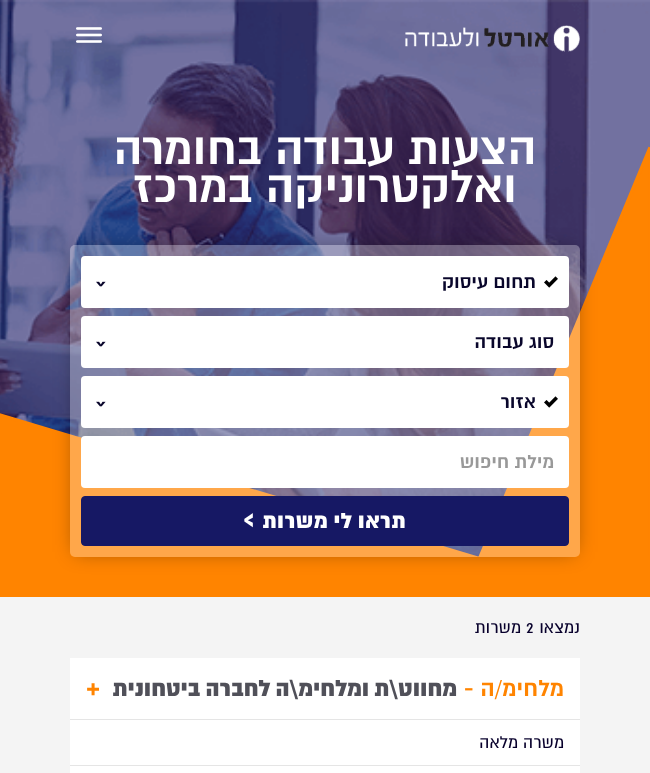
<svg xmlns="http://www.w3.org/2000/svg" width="650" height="773">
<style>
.a{font:bold 51.25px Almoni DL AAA;direction:rtl;fill:#fff}
.b{font:bold 21px Almoni DL AAA;direction:rtl;fill:#09062b}
.c{font:bold 21px Almoni DL AAA;direction:rtl;fill:#999}
.d{font:900 24px Almoni DL AAA;letter-spacing:0.5px;direction:rtl;fill:#fff}
.e{font:19px Almoni DL AAA;direction:rtl;fill:#08002c}
.f{font:19px Almoni DL AAA;fill:#08002c}
.g{font:bold 25.6px Almoni DL AAA;direction:rtl;fill:#ff8400}
.h{font:900 25.6px Almoni DL AAA;direction:rtl;fill:#505059}
.i{font:900 30px Almoni DL AAA;fill:#ff8400}
</style>
<defs>
<clipPath id="clip1"><path d="M0 0h650v559H0z"/></clipPath>
<clipPath id="clip2"><path d="M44 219h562v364h-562zm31 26h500c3 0 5 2 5 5v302c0 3-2 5-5 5h-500c-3 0-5-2-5-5v-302c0-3 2-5 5-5z" clip-rule="evenodd"/></clipPath>
</defs>
<rect width="100%" height="100%" fill="#f4f4f4"/>
<path fill="#ff8400" d="M0 559h650v38H0z"/>
<image href="1.png" x="0" y="0" width="650" height="557"/>
<path fill="#ff8400" d="M0 559v-144l479 144l171-412v412z"/>
<g clip-path="url(#clip1)">
<path fill="none" stroke="#ff8400" stroke-width="3.3" d="M0 558.5v-143.5l479.5 143.5l170.5-411v411z"/>
</g>
<image href="2.png" x="405" y="25" width="175" height="27"/>
<image href="3.png" x="76" y="27" width="26" height="16"/>
<g clip-path="url(#clip2)">
<path fill="#00000066" filter="blur(10px)" d="M75 250h500v302H75z"/>
</g>
<rect fill="#ffffff4a" x="70" y="245" width="510" height="312" rx="5"/>
<rect fill="#fff" x="81" y="256" width="488" height="52" rx="4"/>
<image href="4.png" x="544" y="276" width="14" height="12"/>
<image href="5.png" x="96" y="281" width="10" height="6"/>
<rect fill="#fff" x="81" y="316" width="488" height="52" rx="4"/>
<image href="5.png" x="96" y="341" width="10" height="6"/>
<rect fill="#fff" x="81" y="376" width="488" height="52" rx="4"/>
<image href="4.png" x="544" y="396" width="14" height="12"/>
<image href="5.png" x="96" y="401" width="10" height="6"/>
<rect fill="#fff" x="81" y="436" width="488" height="52" rx="4"/>
<rect fill="#161864" stroke="#161864" x="81.5" y="496.5" width="487" height="49" rx="3.5"/>
<image href="6.png" x="244" y="513" width="9" height="15"/>
<path fill="#fff" d="M70 658h510v115H70z"/>
<path fill="#e5e5e5" d="M70 719h510v1H70z"/>
<path fill="#e5e5e5" d="M70 765h510v1H70z"/>
<text class="a" x="536" y="164">הצעות עבודה בחומרה</text>
<text class="a" x="517" y="202">ואלקטרוניקה במרכז</text>
<text class="b" x="536" y="288">תחום עיסוק</text>
<text class="b" x="554" y="348">סוג עבודה</text>
<text class="b" x="536" y="408">אזור</text>
<text class="c" x="554" y="468">מילת חיפוש</text>
<text class="d" x="406" y="528">תראו לי משרות</text>
<text class="e" x="580" y="633">נמצאו</text>
<text class="f" x="526" y="633">2</text>
<text class="e" x="521" y="633">משרות</text>
<text class="g" x="564" y="696">מלחימ/ה -</text>
<text class="h" x="457" y="696">מחווט\ת ומלחימ\ה לחברה ביטחונית</text>
<text class="i" x="86" y="697">+</text>
<text class="e" x="564" y="748">משרה</text>
<text class="e" x="518" y="748">מלאה</text>
</svg>
